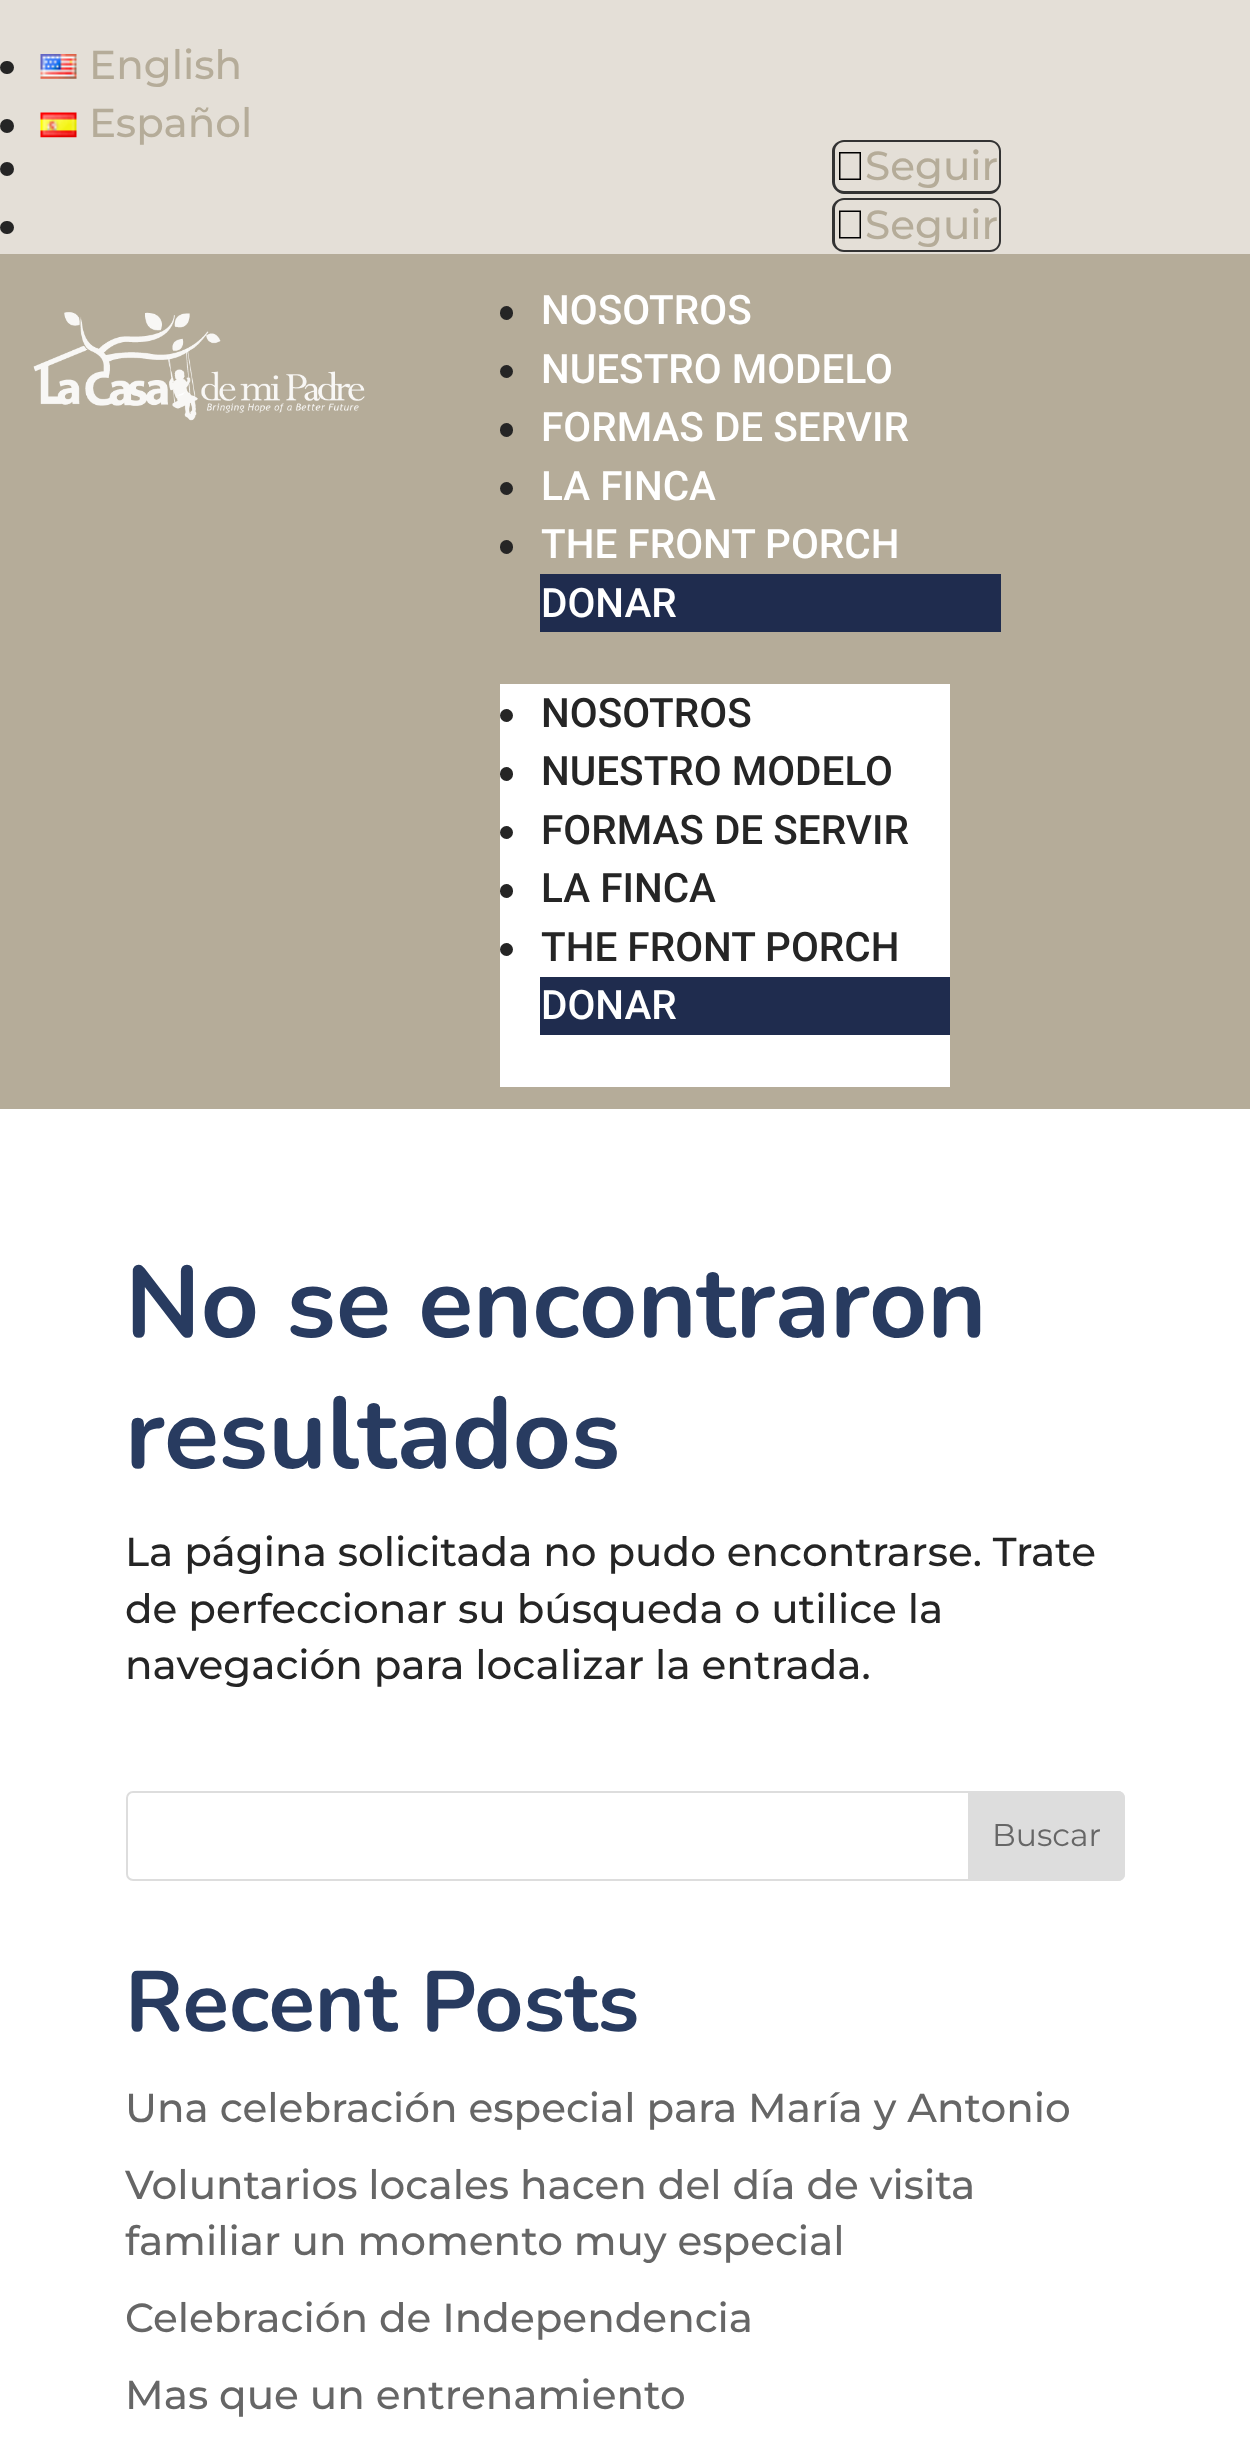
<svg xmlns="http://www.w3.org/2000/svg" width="1250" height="2438">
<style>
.a{font:500 40.5px Montserrat;fill:#b5ac99}
.b{font:500 40.5px Roboto;fill:#fff}
.c{font:500 40.5px Roboto;fill:#252525}
.d{font:bold 101.25px Nunito;fill:#283b60}
.e{font:500 40.5px Montserrat;fill:#252525}
.f{font:31.5px Montserrat;fill:#666}
.g{font:bold 85.5px Nunito;fill:#283b60}
.h{font:500 40.5px Montserrat;fill:#666}
</style>
<rect width="100%" height="100%" fill="#fff"/>
<path fill="#e4dfd7" d="M0 0h1250v254H0z"/>
<rect fill="#252525" y="61" width="14" height="13" rx="6.5"/>
<image href="1.png" x="40" y="54" width="37" height="25"/>
<circle fill="#252525" cx="7" cy="126" r="7"/>
<image href="2.png" x="40" y="112" width="37" height="26"/>
<circle fill="#252525" cx="7" cy="169" r="7"/>
<path fill="#333" fill-rule="evenodd" d="M844 140h22v54h-22c-6 0-12-6-12-12v-31c0-6 6-11 12-11zm0 2h22v49h-22c-5 0-9-4-9-9v-31c0-5 4-9 9-9z"/>
<path fill="#333" fill-rule="evenodd" d="M866 140h124c6 0 11 5 11 11v31c0 6-5 12-11 12h-124zm0 2h124c5 0 9 4 9 9v31c0 5-4 9-9 9h-124z"/>
<path fill="#000" d="M839 152h22v28h-22zm1.5 1.5v25h19v-25z"/>
<rect fill="#252525" y="221" width="14" height="13" rx="6.5"/>
<path fill="#333" fill-rule="evenodd" d="M844 198h22v54h-22c-6 0-12-5-12-11v-32c0-6 6-11 12-11zm0 2h22v50h-22c-5 0-9-4-9-9v-32c0-5 4-9 9-9z"/>
<path fill="#333" fill-rule="evenodd" d="M866 198h124c6 0 11 5 11 11v32c0 6-5 11-11 11h-124zm0 2h124c5 0 9 4 9 9v32c0 5-4 9-9 9h-124z"/>
<path fill="#000" d="M839 210.5h22v28h-22zm1.5 1.5v25h19v-25z"/>
<path fill="#b5ac99" d="M0 254h1250v855H0z"/>
<image href="3.png" x="33" y="312" width="332" height="109"/>
<rect fill="#252525" x="500" y="306" width="13" height="14" rx="6.5"/>
<circle fill="#252525" cx="506.5" cy="371.5" r="6.5"/>
<rect fill="#252525" x="500" y="423" width="13" height="14" rx="6.5"/>
<circle fill="#252525" cx="506.5" cy="488.5" r="6.5"/>
<rect fill="#252525" x="500" y="540" width="13" height="14" rx="6.5"/>
<path fill="#1f2c4e" d="M540 574h461v58H540z"/>
<path fill="#fff" d="M500 684h450v403H500z"/>
<circle fill="#252525" cx="506.5" cy="715.5" r="6.5"/>
<rect fill="#252525" x="500" y="767" width="13" height="14" rx="6.5"/>
<circle fill="#252525" cx="506.5" cy="832.5" r="6.5"/>
<rect fill="#252525" x="500" y="884" width="13" height="14" rx="6.5"/>
<circle fill="#252525" cx="506.5" cy="949.5" r="6.5"/>
<path fill="#1f2c4e" d="M540 977h410v58H540z"/>
<rect fill="none" stroke="#ddd" stroke-width="2" x="127" y="1792" width="997" height="88" rx="6"/>
<path fill="#ddd" stroke="#ddd" stroke-width="2" d="M969 1792h149c3.5 0 6 2.5 6 6v76c0 3.5-2.5 6-6 6h-149z"/>
<text class="a" x="89" y="79">English</text>
<text class="a" x="89" y="137">Español</text>
<text class="a" x="865" y="180">Seguir</text>
<text class="a" x="865" y="239">Seguir</text>
<text class="b" x="541" y="324">NOSOTROS</text>
<text class="b" x="541" y="383">NUESTRO MODELO</text>
<text class="b" x="541" y="441">FORMAS DE SERVIR</text>
<text class="b" x="541" y="500">LA FINCA</text>
<text class="b" x="541" y="558">THE FRONT PORCH</text>
<text class="b" x="541" y="617">DONAR</text>
<text class="c" x="541" y="727">NOSOTROS</text>
<text class="c" x="541" y="785">NUESTRO MODELO</text>
<text class="c" x="541" y="844">FORMAS DE SERVIR</text>
<text class="c" x="541" y="902">LA FINCA</text>
<text class="c" x="541" y="961">THE FRONT PORCH</text>
<text class="b" x="541" y="1019">DONAR</text>
<text class="d" x="125" y="1337">No se encontraron</text>
<text class="d" x="125" y="1468">resultados</text>
<text class="e" x="125" y="1566">La página solicitada no pudo encontrarse. Trate</text>
<text class="e" x="125" y="1623">de perfeccionar su búsqueda o utilice la</text>
<text class="e" x="125" y="1679">navegación para localizar la entrada.</text>
<text class="f" x="992" y="1846">Buscar</text>
<text class="g" x="125" y="2031">Recent Posts</text>
<text class="h" x="125" y="2122">Una celebración especial para María y Antonio</text>
<text class="h" x="125" y="2199">Voluntarios locales hacen del día de visita</text>
<text class="h" x="125" y="2255">familiar un momento muy especial</text>
<text class="h" x="125" y="2332">Celebración de Independencia</text>
<text class="h" x="125" y="2409">Mas que un entrenamiento</text>
</svg>
